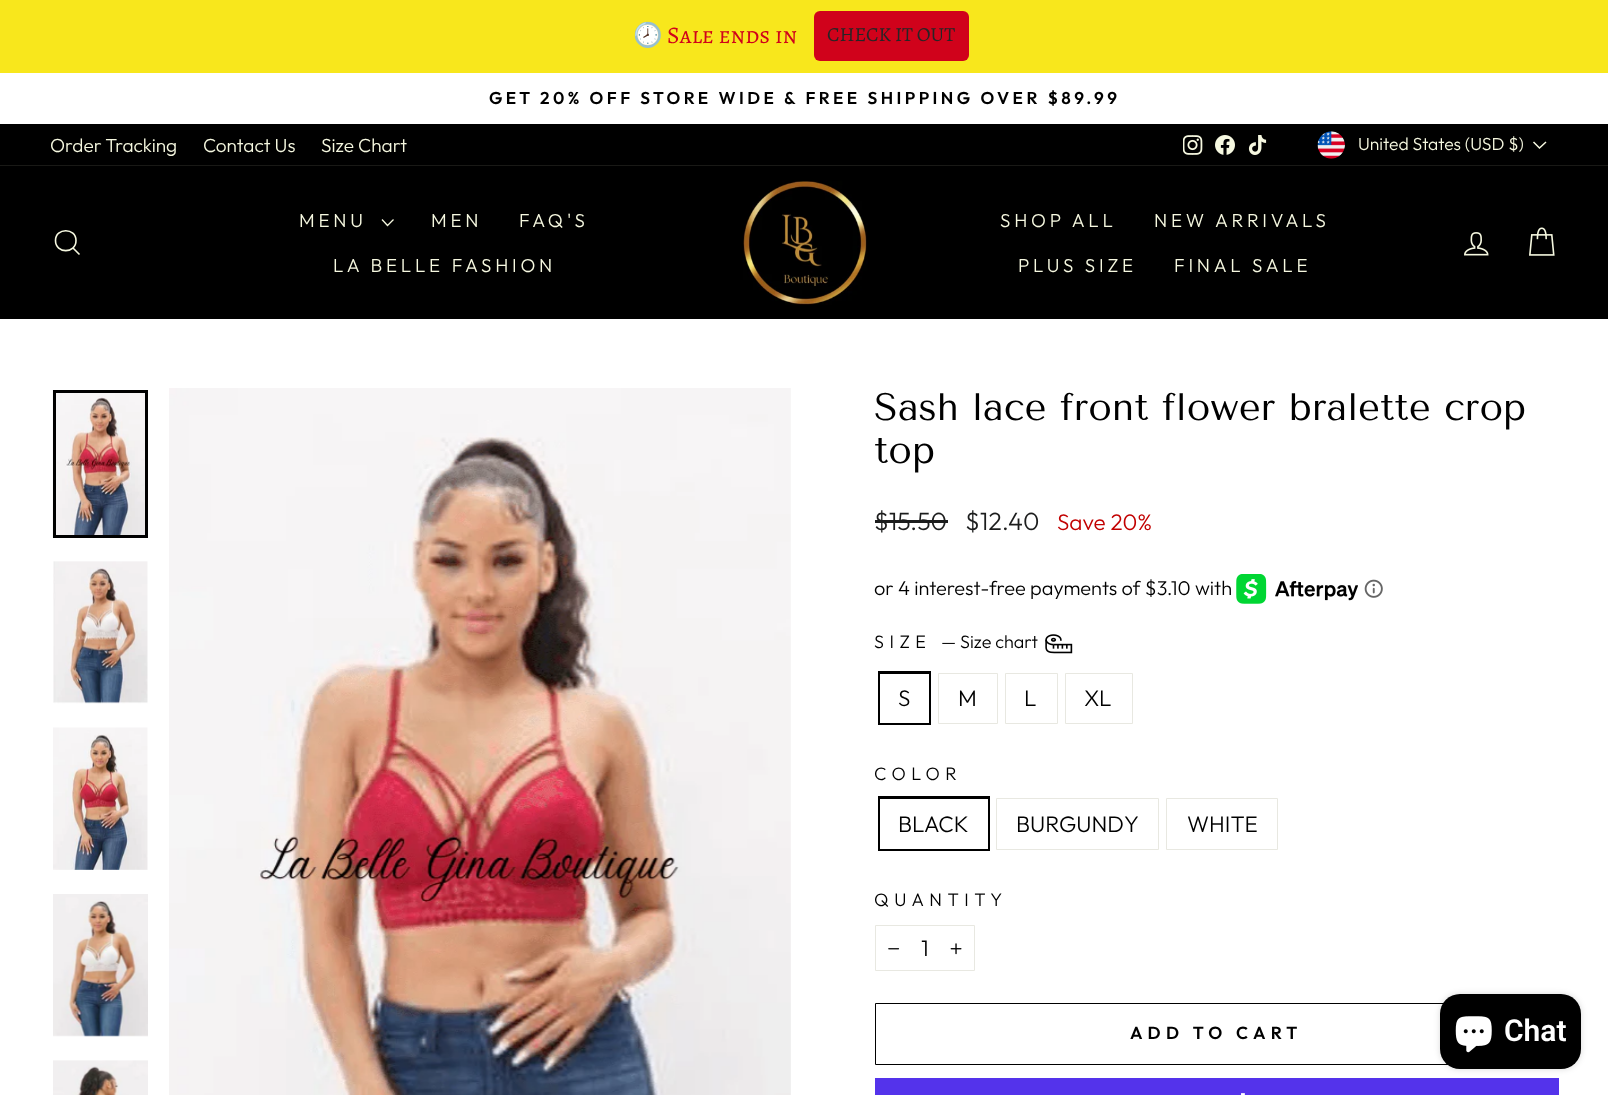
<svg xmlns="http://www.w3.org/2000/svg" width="1608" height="1095">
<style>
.a{font:23.75px Noto Color Emoji;fill:#d0021b}
.b{font:23.75px Alegreya SC;fill:#d0021b}
.c{font:20px Alegreya SC;fill:#262626}
.d{font:600 17.2px Outfit;letter-spacing:3.45px;fill:#000}
.e{font:300 19px Outfit;fill:#f6f8e0}
.f{font:300 17.5px Outfit;fill:#f6f8e0}
.g{font:300 18.75px Outfit;letter-spacing:3.75px;fill:#f6f8e0}
.h{font:38.25px Tenor Sans;fill:#000}
.i{font:300 25px Outfit;fill:#1c1d1d}
.j{font:300 22.5px Outfit;fill:#c20000}
.k{font:300 20px Outfit;fill:#000}
.l{font:300 18px Outfit;letter-spacing:5.5px;fill:#000}
.m{font:300 18px Outfit;fill:#000}
.n{font:300 22.5px Outfit;fill:#000}
.o{font:600 17.5px Outfit;letter-spacing:5.25px;fill:#000}
.p{font:600 30px Roboto;fill:#fff}
</style>
<rect width="100%" height="100%" fill="#fff"/>
<path fill="#f8e71c" d="M0 0h1608v73H0z"/>
<rect fill="#d0021b" x="814" y="11" width="155" height="50" rx="6"/>
<path fill="#000" d="M0 124h1608v41H0z"/>
<image href="1.png" x="1183" y="135" width="20" height="20"/>
<image href="2.png" x="1215" y="135" width="20" height="20"/>
<image href="3.png" x="1248" y="135" width="19" height="20"/>
<image href="4.png" x="1317" y="131" width="28" height="28"/>
<path fill="none" stroke="#f6f8e0" stroke-width="1.5" d="M1533.5 142l6 6l6.5-6"/>
<path fill="#000" d="M0 166h1608v153H0z"/>
<path fill="#191916" d="M0 165h1608v1H0z"/>
<path fill="none" stroke="#f6f8e0" stroke-width="1.6" d="M76 240.5c0 13.5-20.5 13.5-20.5 0c0-13 20.5-13 20.5 0zm3.5 14l-6.5-6.5"/>
<path fill="none" stroke="#f6f8e0" stroke-width="1.3" d="M382 219.5l5.5 6l6-6"/>
<image href="5.png" x="742" y="180" width="126" height="125"/>
<image href="6.png" x="1464" y="232" width="25" height="24"/>
<image href="7.png" x="1529" y="227" width="26" height="29"/>
<image href="8.png" x="52" y="390" width="93" height="148"/>
<path fill="none" stroke="#000" stroke-width="3" d="M54.5 391.5h92v145H54.5z"/>
<image href="9.png" x="53" y="561" width="95" height="143"/>
<image href="10.png" x="53" y="727" width="95" height="143"/>
<image href="11.png" x="53" y="894" width="95" height="143"/>
<image href="12.png" x="53" y="1060" width="95" height="35"/>
<image href="13.png" x="169" y="388" width="622" height="707"/>
<path fill="#1c1d1d" d="M875 520h73v3H875z"/>
<image href="14.png" x="1236" y="574" width="122" height="30"/>
<image href="15.png" x="1364" y="579" width="19" height="19"/>
<image href="16.png" x="1045" y="634" width="28" height="20"/>
<path fill="none" stroke="#000" stroke-width="3" d="M879.5 672.5h50v51H879.5z"/>
<path fill="#fff" d="M880 674h49v49H880z"/>
<path fill="none" stroke="#e8e8e1" d="M938.5 673.5h59v50H938.5z"/>
<path fill="none" stroke="#e8e8e1" d="M1005.5 673.5h52v50H1005.5z"/>
<path fill="none" stroke="#e8e8e1" d="M1065.5 673.5h67v50H1065.5z"/>
<path fill="none" stroke="#000" stroke-width="3" d="M879.5 797.5h109v52H879.5z"/>
<path fill="#fff" d="M880 799h108v50H880z"/>
<path fill="none" stroke="#e8e8e1" d="M996.5 798.5h162v51H996.5z"/>
<path fill="none" stroke="#e8e8e1" d="M1166.5 798.5h111v51H1166.5z"/>
<path fill="none" stroke="#e8e8e1" d="M875.5 925.5h99v45H875.5z"/>
<image href="17.png" x="888" y="948" width="12" height="2"/>
<image href="18.png" x="950" y="943" width="12" height="12"/>
<path fill="none" stroke="#000" d="M875.5 1003.5h683v61H875.5z"/>
<path fill="#5433eb" d="M875 1078h684v17H875z"/>
<image href="19.png" x="1241" y="1093" width="4" height="2"/>
<rect fill="#00000026" filter="blur(3px)" x="1440" y="994" width="141" height="75" rx="20"/>
<rect fill="#000" x="1440" y="994" width="141" height="75" rx="20"/>
<image href="20.png" x="1455" y="1016" width="37" height="37"/>
<text class="a" x="633" y="43">🕗</text>
<text class="b" x="667" y="43">Sale ends in</text>
<text class="c" x="827" y="41">CHECK IT OUT</text>
<text class="d" x="489" y="104">GET 20% OFF STORE WIDE &amp; FREE SHIPPING OVER $89.99</text>
<text class="e" x="50" y="152">Order Tracking</text>
<text class="e" x="203" y="152">Contact Us</text>
<text class="e" x="321" y="152">Size Chart</text>
<text class="f" x="1358" y="150">United States (USD $)</text>
<text class="g" x="299" y="227">MENU</text>
<text class="g" x="431" y="227">MEN</text>
<text class="g" x="519" y="227">FAQ'S</text>
<text class="g" x="333" y="272">LA BELLE FASHION</text>
<text class="g" x="1000" y="227">SHOP ALL</text>
<text class="g" x="1154" y="227">NEW ARRIVALS</text>
<text class="g" x="1018" y="272">PLUS SIZE</text>
<text class="g" x="1174" y="272">FINAL SALE</text>
<text class="h" x="874" y="420">Sash lace front flower bralette crop</text>
<text class="h" x="874" y="463">top</text>
<text class="i" x="874" y="530">$15.50</text>
<text class="i" x="965" y="530">$12.40</text>
<text class="j" x="1057" y="530">Save 20%</text>
<text class="k" x="874" y="595">or 4 interest-free payments of $3.10 with</text>
<text class="l" x="874" y="648">SIZE</text>
<text class="m" x="941" y="648">— Size chart</text>
<text class="n" x="898" y="706">S</text>
<text class="n" x="958" y="706">M</text>
<text class="n" x="1024" y="706">L</text>
<text class="n" x="1084" y="706">XL</text>
<text class="l" x="874" y="780">COLOR</text>
<text class="n" x="898" y="832">BLACK</text>
<text class="n" x="1016" y="832">BURGUNDY</text>
<text class="n" x="1187" y="832">WHITE</text>
<text class="l" x="874" y="906">QUANTITY</text>
<text class="n" x="921" y="956">1</text>
<text class="o" x="1130" y="1039">ADD TO CART</text>
<text class="p" x="1504" y="1041">Chat</text>
</svg>
